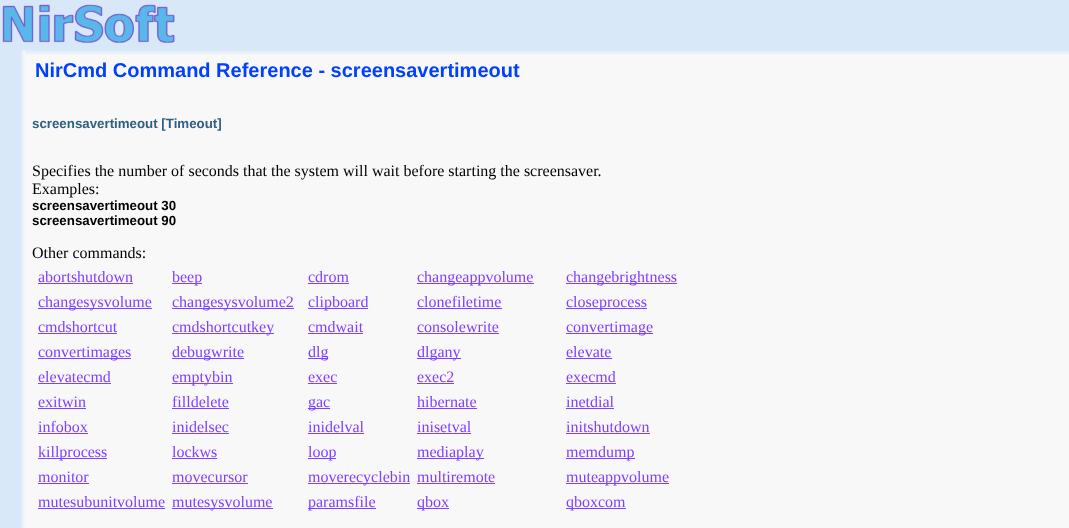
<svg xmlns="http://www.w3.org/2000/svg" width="1069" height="528">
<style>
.a{font:bold 20px Liberation Sans;fill:#0040ff}
.b{font:bold 13.3px Liberation Sans;fill:#306080}
.c{font:16px Liberation Serif;fill:#000}
.d{font:bold 13.3px Liberation Sans;fill:#000}
.e{font:16px Liberation Serif;fill:#8040ff}
</style>
<rect width="100%" height="100%" fill="#f8f8f8"/>
<path fill="#d8e8f8" d="M0 0h1069v50H0z"/>
<image href="1.png" x="2" y="4" width="173" height="39"/>
<path fill="#d8e8f8" d="M0 50h20v478H0z"/>
<image href="2.png" x="20" y="50" width="5" height="478"/>
<image href="3.png" x="25" y="50" width="1044" height="5"/>
<path fill="#8040ff" d="M38 283h95v1H38z"/>
<path fill="#8040ff" d="M172 283h30v1H172z"/>
<path fill="#8040ff" d="M308 283h41v1H308z"/>
<path fill="#8040ff" d="M417 283h117v1H417z"/>
<path fill="#8040ff" d="M566 283h111v1H566z"/>
<path fill="#8040ff" d="M38 308h114v1H38z"/>
<path fill="#8040ff" d="M172 308h122v1H172z"/>
<path fill="#8040ff" d="M308 308h60v1H308z"/>
<path fill="#8040ff" d="M417 308h85v1H417z"/>
<path fill="#8040ff" d="M566 308h81v1H566z"/>
<path fill="#8040ff" d="M38 333h79v1H38z"/>
<path fill="#8040ff" d="M172 333h102v1H172z"/>
<path fill="#8040ff" d="M308 333h55v1H308z"/>
<path fill="#8040ff" d="M417 333h82v1H417z"/>
<path fill="#8040ff" d="M566 333h87v1H566z"/>
<path fill="#8040ff" d="M38 358h93v1H38z"/>
<path fill="#8040ff" d="M172 358h72v1H172z"/>
<path fill="#8040ff" d="M308 358h20v1H308z"/>
<path fill="#8040ff" d="M417 358h44v1H417z"/>
<path fill="#8040ff" d="M566 358h46v1H566z"/>
<path fill="#8040ff" d="M38 383h73v1H38z"/>
<path fill="#8040ff" d="M172 383h61v1H172z"/>
<path fill="#8040ff" d="M308 383h29v1H308z"/>
<path fill="#8040ff" d="M417 383h37v1H417z"/>
<path fill="#8040ff" d="M566 383h50v1H566z"/>
<path fill="#8040ff" d="M38 408h48v1H38z"/>
<path fill="#8040ff" d="M172 408h57v1H172z"/>
<path fill="#8040ff" d="M308 408h22v1H308z"/>
<path fill="#8040ff" d="M417 408h60v1H417z"/>
<path fill="#8040ff" d="M566 408h48v1H566z"/>
<path fill="#8040ff" d="M38 433h50v1H38z"/>
<path fill="#8040ff" d="M172 433h57v1H172z"/>
<path fill="#8040ff" d="M308 433h56v1H308z"/>
<path fill="#8040ff" d="M417 433h54v1H417z"/>
<path fill="#8040ff" d="M566 433h84v1H566z"/>
<path fill="#8040ff" d="M38 458h69v1H38z"/>
<path fill="#8040ff" d="M172 458h45v1H172z"/>
<path fill="#8040ff" d="M308 458h28v1H308z"/>
<path fill="#8040ff" d="M417 458h67v1H417z"/>
<path fill="#8040ff" d="M566 458h69v1H566z"/>
<path fill="#8040ff" d="M38 483h51v1H38z"/>
<path fill="#8040ff" d="M172 483h76v1H172z"/>
<path fill="#8040ff" d="M308 483h102v1H308z"/>
<path fill="#8040ff" d="M417 483h78v1H417z"/>
<path fill="#8040ff" d="M566 483h103v1H566z"/>
<path fill="#8040ff" d="M38 508h127v1H38z"/>
<path fill="#8040ff" d="M172 508h101v1H172z"/>
<path fill="#8040ff" d="M308 508h68v1H308z"/>
<path fill="#8040ff" d="M417 508h32v1H417z"/>
<path fill="#8040ff" d="M566 508h60v1H566z"/>
<text class="a" x="35" y="77">NirCmd Command Reference - screensavertimeout</text>
<text class="b" x="32" y="128">screensavertimeout [Timeout]</text>
<text class="c" x="32" y="176">Specifies the number of seconds that the system will wait before starting the screensaver.</text>
<text class="c" x="32" y="194">Examples:</text>
<text class="d" x="32" y="210">screensavertimeout 30</text>
<text class="d" x="32" y="225">screensavertimeout 90</text>
<text class="c" x="32" y="258">Other commands:</text>
<text class="e" x="38" y="282">abortshutdown</text>
<text class="e" x="172" y="282">beep</text>
<text class="e" x="308" y="282">cdrom</text>
<text class="e" x="417" y="282">changeappvolume</text>
<text class="e" x="566" y="282">changebrightness</text>
<text class="e" x="38" y="307">changesysvolume</text>
<text class="e" x="172" y="307">changesysvolume2</text>
<text class="e" x="308" y="307">clipboard</text>
<text class="e" x="417" y="307">clonefiletime</text>
<text class="e" x="566" y="307">closeprocess</text>
<text class="e" x="38" y="332">cmdshortcut</text>
<text class="e" x="172" y="332">cmdshortcutkey</text>
<text class="e" x="308" y="332">cmdwait</text>
<text class="e" x="417" y="332">consolewrite</text>
<text class="e" x="566" y="332">convertimage</text>
<text class="e" x="38" y="357">convertimages</text>
<text class="e" x="172" y="357">debugwrite</text>
<text class="e" x="308" y="357">dlg</text>
<text class="e" x="417" y="357">dlgany</text>
<text class="e" x="566" y="357">elevate</text>
<text class="e" x="38" y="382">elevatecmd</text>
<text class="e" x="172" y="382">emptybin</text>
<text class="e" x="308" y="382">exec</text>
<text class="e" x="417" y="382">exec2</text>
<text class="e" x="566" y="382">execmd</text>
<text class="e" x="38" y="407">exitwin</text>
<text class="e" x="172" y="407">filldelete</text>
<text class="e" x="308" y="407">gac</text>
<text class="e" x="417" y="407">hibernate</text>
<text class="e" x="566" y="407">inetdial</text>
<text class="e" x="38" y="432">infobox</text>
<text class="e" x="172" y="432">inidelsec</text>
<text class="e" x="308" y="432">inidelval</text>
<text class="e" x="417" y="432">inisetval</text>
<text class="e" x="566" y="432">initshutdown</text>
<text class="e" x="38" y="457">killprocess</text>
<text class="e" x="172" y="457">lockws</text>
<text class="e" x="308" y="457">loop</text>
<text class="e" x="417" y="457">mediaplay</text>
<text class="e" x="566" y="457">memdump</text>
<text class="e" x="38" y="482">monitor</text>
<text class="e" x="172" y="482">movecursor</text>
<text class="e" x="308" y="482">moverecyclebin</text>
<text class="e" x="417" y="482">multiremote</text>
<text class="e" x="566" y="482">muteappvolume</text>
<text class="e" x="38" y="507">mutesubunitvolume</text>
<text class="e" x="172" y="507">mutesysvolume</text>
<text class="e" x="308" y="507">paramsfile</text>
<text class="e" x="417" y="507">qbox</text>
<text class="e" x="566" y="507">qboxcom</text>
</svg>
